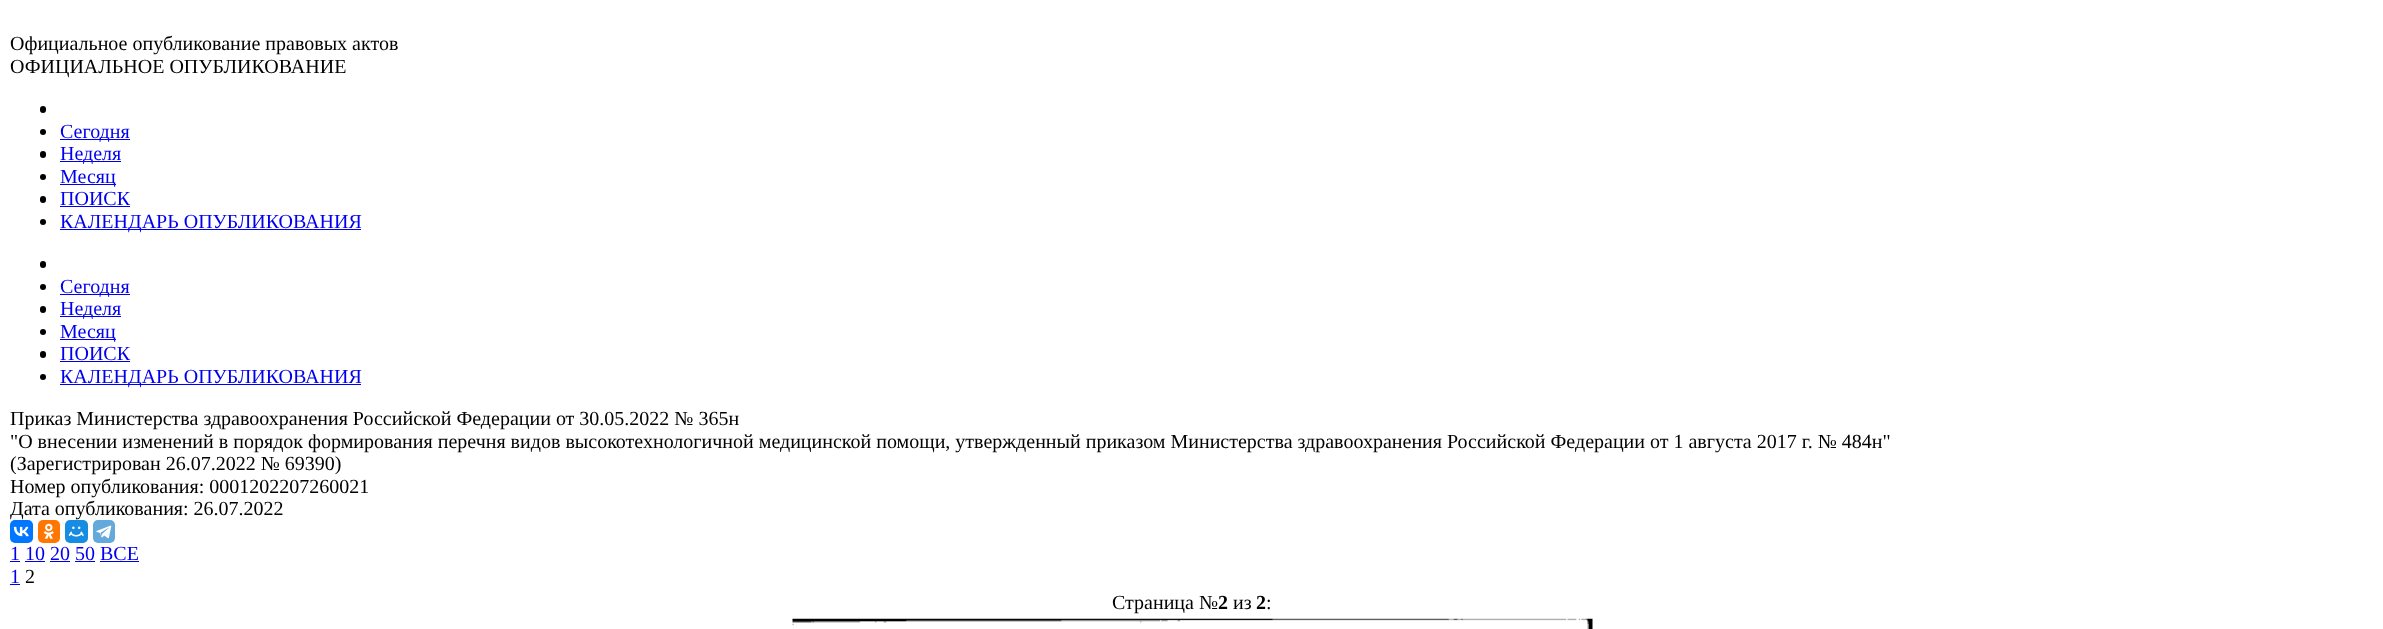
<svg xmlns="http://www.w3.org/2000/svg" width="2383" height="629">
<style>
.a{font:20px Liberation Serif;fill:#000}
.b{font:20px Liberation Serif;fill:#00e}
.c{font:bold 20px Liberation Serif;fill:#000}
</style>
<rect width="100%" height="100%" fill="#fff"/>
<rect fill="#000" x="40" y="106" width="6" height="7" rx="3"/>
<circle fill="#000" cx="43" cy="132" r="3"/>
<path fill="#00e" d="M60 139h70v1H60z"/>
<rect fill="#000" x="40" y="151" width="6" height="7" rx="3"/>
<path fill="#00e" d="M60 161h61v1H60z"/>
<circle fill="#000" cx="43" cy="177" r="3"/>
<path fill="#00e" d="M60 184h56v1H60z"/>
<rect fill="#000" x="40" y="196" width="6" height="7" rx="3"/>
<path fill="#00e" d="M60 206h70v1H60z"/>
<circle fill="#000" cx="43" cy="222" r="3"/>
<path fill="#00e" d="M60 229h301v1H60z"/>
<rect fill="#000" x="40" y="261" width="6" height="7" rx="3"/>
<circle fill="#000" cx="43" cy="287" r="3"/>
<path fill="#00e" d="M60 294h70v1H60z"/>
<rect fill="#000" x="40" y="306" width="6" height="7" rx="3"/>
<path fill="#00e" d="M60 316h61v1H60z"/>
<circle fill="#000" cx="43" cy="332" r="3"/>
<path fill="#00e" d="M60 339h56v1H60z"/>
<rect fill="#000" x="40" y="351" width="6" height="7" rx="3"/>
<path fill="#00e" d="M60 361h70v1H60z"/>
<circle fill="#000" cx="43" cy="377" r="3"/>
<path fill="#00e" d="M60 384h301v1H60z"/>
<rect fill="#07f" x="10" y="520" width="23" height="23" rx="5"/>
<image href="1.png" x="13" y="526" width="16" height="11"/>
<rect fill="#f70" x="38" y="520" width="22" height="23" rx="5"/>
<image href="2.png" x="43" y="523" width="11" height="16"/>
<rect fill="#168de2" x="65" y="520" width="23" height="23" rx="5"/>
<image href="3.png" x="68" y="526" width="16" height="11"/>
<rect fill="#64a9dc" x="93" y="520" width="22" height="23" rx="5"/>
<image href="4.png" x="96" y="525" width="16" height="14"/>
<path fill="#00e" d="M10 561h10v1H10z"/>
<path fill="#00e" d="M25 561h20v1H25z"/>
<path fill="#00e" d="M50 561h20v1H50z"/>
<path fill="#00e" d="M75 561h20v1H75z"/>
<path fill="#00e" d="M100 561h39v1H100z"/>
<path fill="#00e" d="M10 584h10v1H10z"/>
<image href="5.png" x="792" y="618" width="801" height="11"/>
<text class="a" x="10" y="50">Официальное опубликование правовых актов</text>
<text class="a" x="10" y="73">ОФИЦИАЛЬНОЕ ОПУБЛИКОВАНИЕ</text>
<text class="b" x="60" y="138">Сегодня</text>
<text class="b" x="60" y="160">Неделя</text>
<text class="b" x="60" y="183">Месяц</text>
<text class="b" x="60" y="205">ПОИСК</text>
<text class="b" x="60" y="228">КАЛЕНДАРЬ ОПУБЛИКОВАНИЯ</text>
<text class="b" x="60" y="293">Сегодня</text>
<text class="b" x="60" y="315">Неделя</text>
<text class="b" x="60" y="338">Месяц</text>
<text class="b" x="60" y="360">ПОИСК</text>
<text class="b" x="60" y="383">КАЛЕНДАРЬ ОПУБЛИКОВАНИЯ</text>
<text class="a" x="10" y="425">Приказ Министерства здравоохранения Российской Федерации от 30.05.2022 № 365н</text>
<text class="a" x="10" y="448">"О внесении изменений в порядок формирования перечня видов высокотехнологичной медицинской помощи, утвержденный приказом Министерства здравоохранения Российской Федерации от 1 августа 2017 г. № 484н"</text>
<text class="a" x="10" y="470">(Зарегистрирован 26.07.2022 № 69390)</text>
<text class="a" x="10" y="493">Номер опубликования: 0001202207260021</text>
<text class="a" x="10" y="515">Дата опубликования: 26.07.2022</text>
<text class="b" x="10" y="560">1 10 20 50 ВСЕ</text>
<text class="b" x="10" y="583">1</text>
<text class="a" x="25" y="583">2</text>
<text class="a" x="1112" y="609">Страница №</text>
<text class="c" x="1218" y="609">2</text>
<text class="a" x="1233" y="609">из</text>
<text class="c" x="1256" y="609">2</text>
<text class="a" x="1266" y="609">:</text>
</svg>
